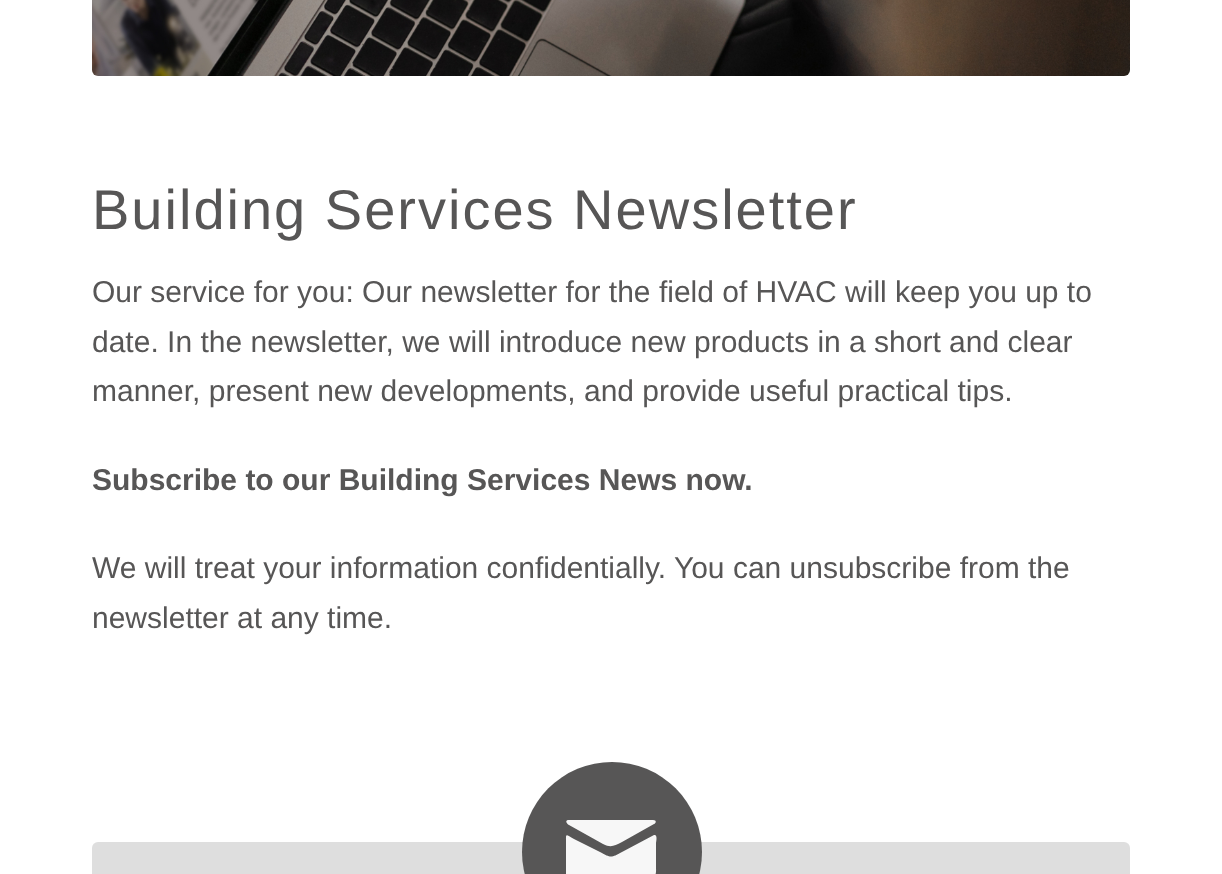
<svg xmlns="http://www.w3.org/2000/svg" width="1222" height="874">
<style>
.a{font:56px Liberation Sans;letter-spacing:2px;fill:#575656}
.b{font:30px Liberation Sans;fill:#575656}
.c{font:bold 30px Liberation Sans;fill:#575656}
</style>
<rect width="100%" height="100%" fill="#fff"/>
<image href="1.png" x="92" y="0" width="1038" height="76"/>
<rect fill="#dedede" x="92" y="842" width="1038" height="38" rx="6"/>
<circle fill="#575656" cx="612" cy="852" r="90"/>
<path fill="#f7f7f7" d="M569 825c-2-1-5-5 0-5h84c4 0 3 3 1 4l-32 18c-8 4-11 6-19 2zm85 10c4-1 2 7 2 8v24c0 4 1 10-5 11h-67c-2 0-16 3-18-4v-31c0-10-1-9 8-4l26 13c11 6 11 6 22 0z"/>
<text class="a" x="92" y="229">Building Services Newsletter</text>
<text class="b" x="92" y="302">Our service for you: Our newsletter for the field of HVAC will keep you up to</text>
<text class="b" x="92" y="352">date. In the newsletter, we will introduce new products in a short and clear</text>
<text class="b" x="92" y="401">manner, present new developments, and provide useful practical tips.</text>
<text class="c" x="92" y="490">Subscribe to our Building Services News now.</text>
<text class="b" x="92" y="578">We will treat your information confidentially. You can unsubscribe from the</text>
<text class="b" x="92" y="628">newsletter at any time.</text>
</svg>
